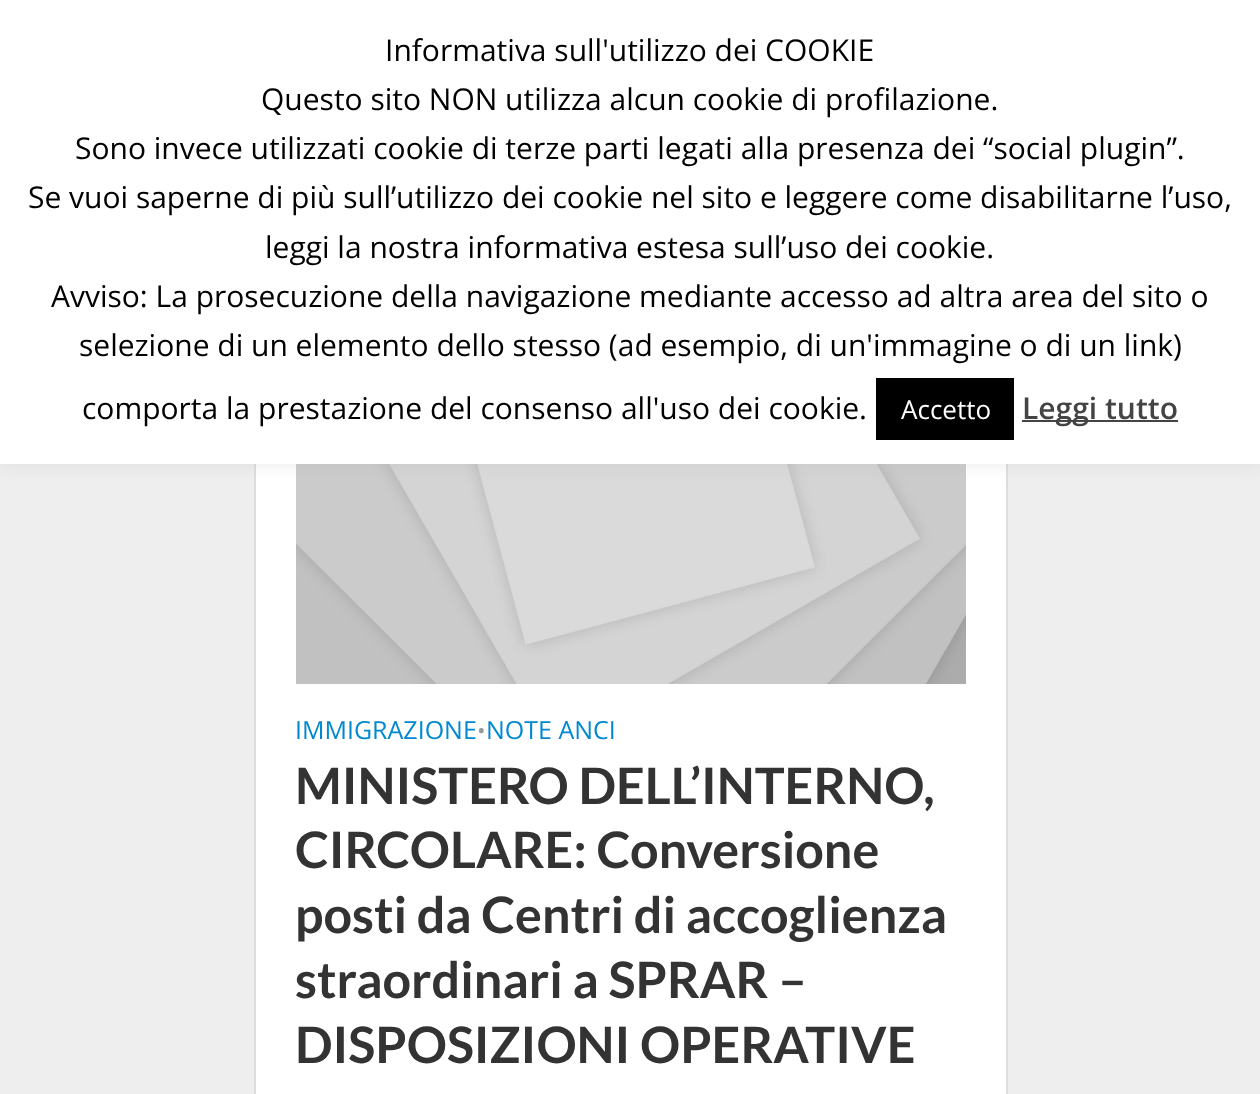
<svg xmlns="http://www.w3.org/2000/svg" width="1260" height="1094">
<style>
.a{font:30px Open Sans;fill:#000}
.b{font:26px Open Sans;fill:#fff}
.c{font:600 30px Open Sans;fill:#444}
.d{font:25px Open Sans;fill:#0288d1}
.e{font:23px Open Sans;fill:#999}
.f{font:bold 50.25px Lato;fill:#333}
</style>
<rect width="100%" height="100%" fill="#eee"/>
<path fill="none" stroke="#ddd" stroke-width="2" d="M255 99h752v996H255z"/>
<path fill="#fff" d="M256 464h750v630H256z"/>
<image href="1.png" x="296" y="464" width="670" height="220"/>
<path fill="#acabab4d" filter="blur(10px)" d="M0 -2h1260v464H0z"/>
<path fill="#fff" d="M0 0h1260v464H0z"/>
<path fill="#000" d="M876 378h138v62H876z"/>
<path fill="#444" d="M1022 420h156v2H1022z"/>
<text class="a" x="385" y="61">Informativa sull'utilizzo dei COOKIE</text>
<text class="a" x="261" y="110">Questo sito NON utilizza alcun cookie di profilazione.</text>
<text class="a" x="75" y="159">Sono invece utilizzati cookie di terze parti legati alla presenza dei “social plugin”.</text>
<text class="a" x="28" y="208">Se vuoi saperne di più sull’utilizzo dei cookie nel sito e leggere come disabilitarne l’uso,</text>
<text class="a" x="265" y="258">leggi la nostra informativa estesa sull’uso dei cookie.</text>
<text class="a" x="51" y="307">Avviso: La prosecuzione della navigazione mediante accesso ad altra area del sito o</text>
<text class="a" x="79" y="356">selezione di un elemento dello stesso (ad esempio, di un'immagine o di un link)</text>
<text class="a" x="82" y="419">comporta la prestazione del consenso all'uso dei cookie.</text>
<text class="b" x="901" y="419">Accetto</text>
<text class="c" x="1022" y="419">Leggi tutto</text>
<text class="d" x="295" y="739">IMMIGRAZIONE</text>
<text class="e" x="477" y="739">•</text>
<text class="d" x="486" y="739">NOTE ANCI</text>
<text class="f" x="295" y="804">MINISTERO DELL’INTERNO,</text>
<text class="f" x="295" y="868">CIRCOLARE: Conversione</text>
<text class="f" x="295" y="933">posti da Centri di accoglienza</text>
<text class="f" x="295" y="998">straordinari a SPRAR –</text>
<text class="f" x="295" y="1063">DISPOSIZIONI OPERATIVE</text>
</svg>
